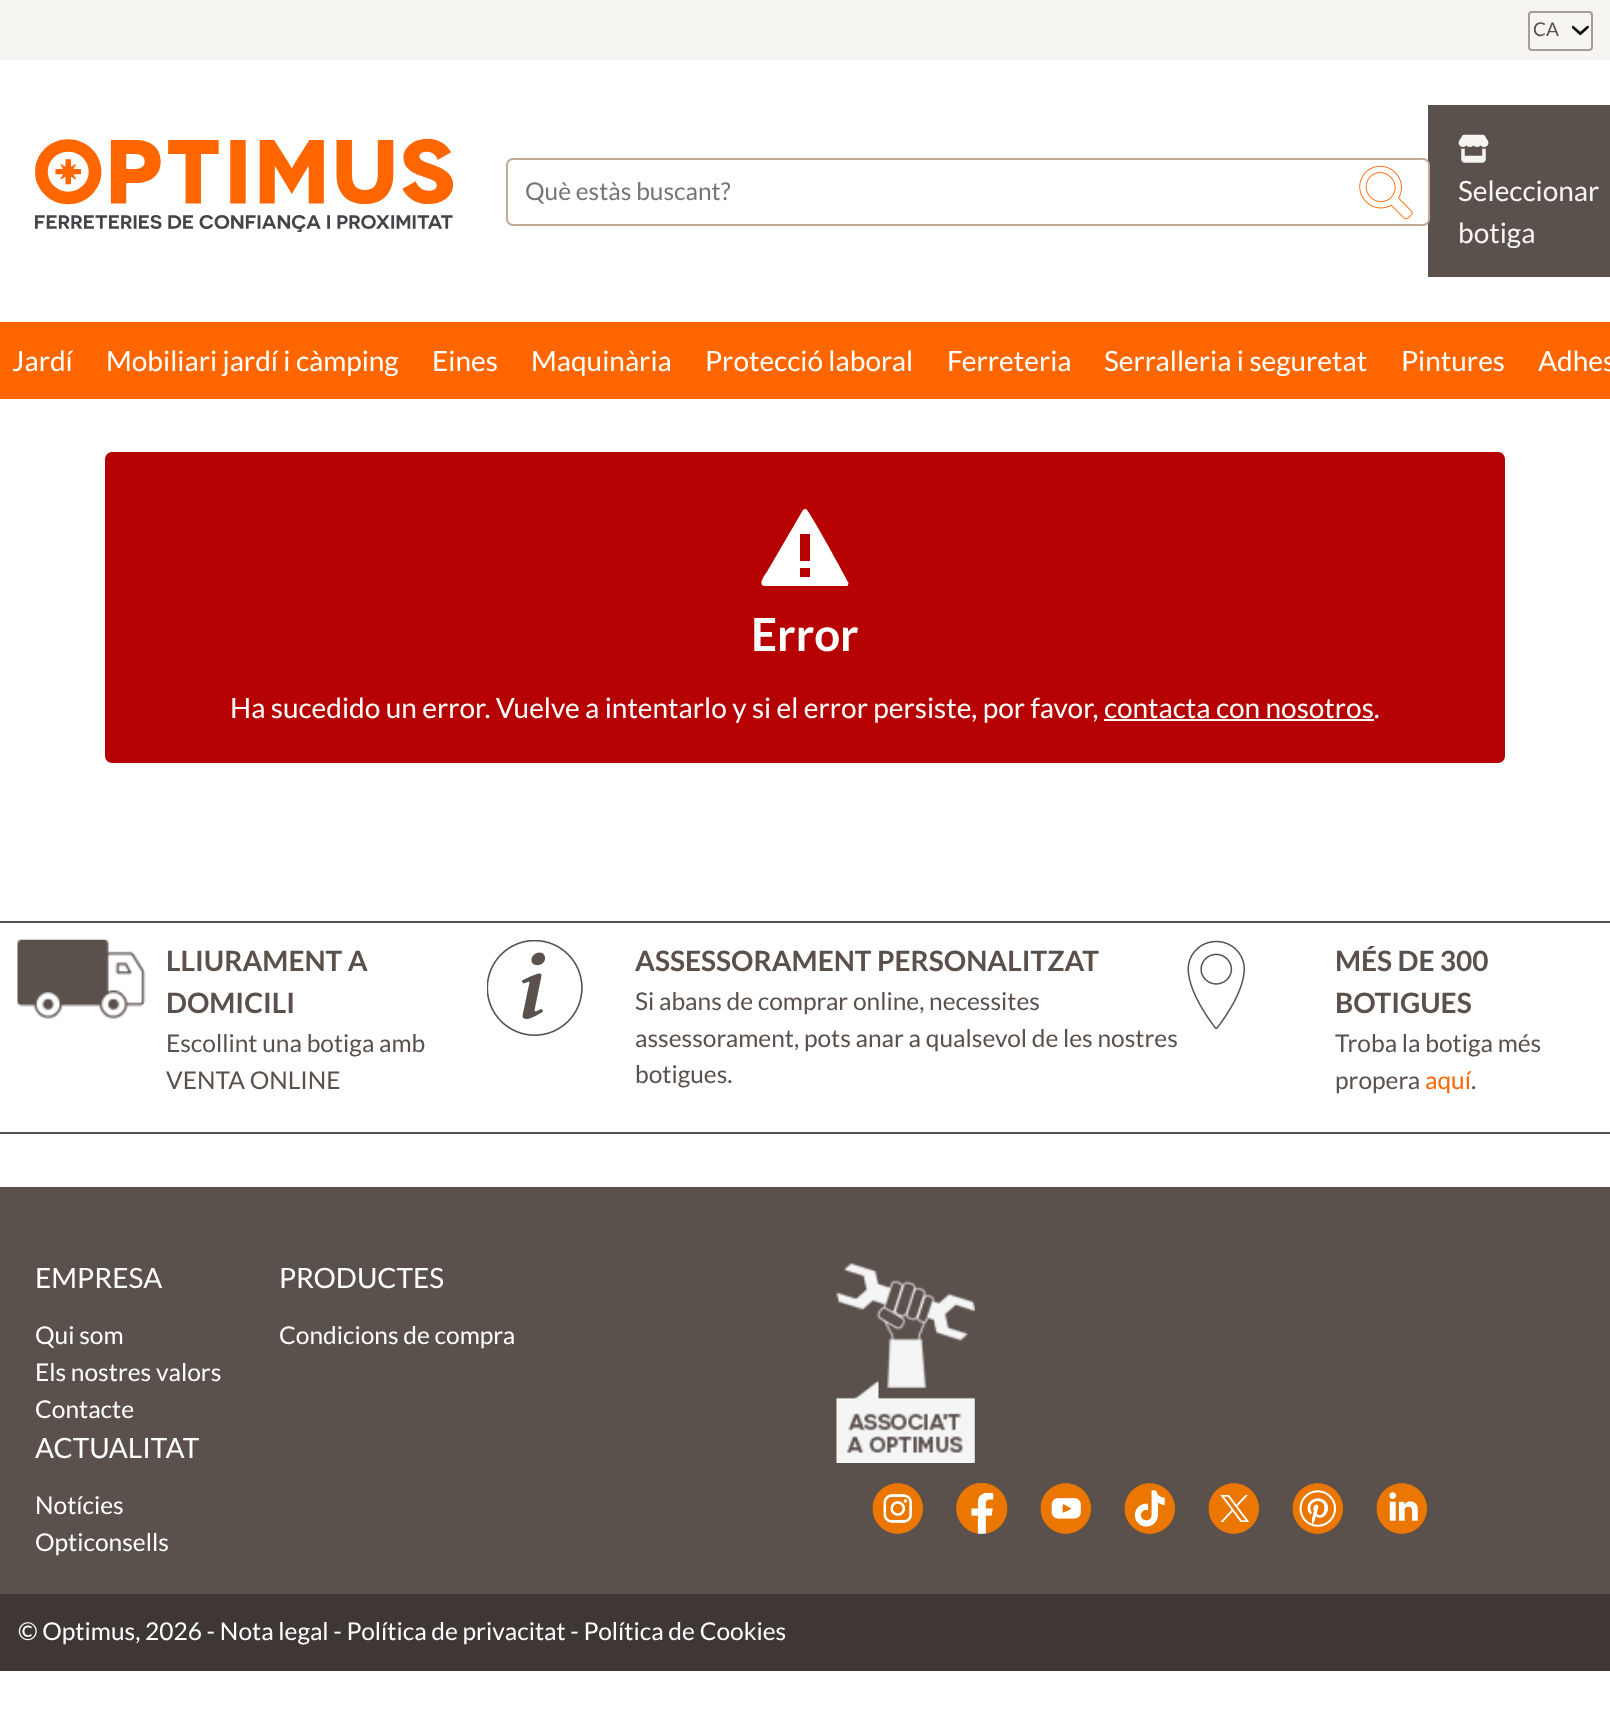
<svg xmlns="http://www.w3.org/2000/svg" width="1610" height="1726">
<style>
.a{font:19px Lato;fill:#5a504c}
.b{font:24.5px Lato;fill:#757575}
.c{font:28px Lato;fill:#f7f5f2}
.d{font:28px Lato;fill:#fff}
.e{font:bold 45.5px Lato;fill:#fff}
.f{font:bold 28px Lato;fill:#5a504c}
.g{font:24.5px Lato;fill:#5a504c}
.h{font:24.5px Lato;fill:#f60}
.i{font:24.5px Lato;fill:#fff}
</style>
<rect width="100%" height="100%" fill="#fff"/>
<path fill="#f7f5f2" d="M0 0h1610v60H0z"/>
<image href="1.png" x="1572" y="25" width="17" height="10"/>
<rect fill="none" stroke="#a89c97" stroke-width="2" x="1529" y="12" width="63" height="38" rx="3"/>
<image href="2.png" x="35" y="138" width="418" height="94"/>
<path fill="#5a504c" d="M1428 105h182v172H1428z"/>
<rect fill="#fff" stroke="#bdac93" stroke-width="2" x="507" y="159" width="922" height="66" rx="6"/>
<image href="3.png" x="1359" y="165" width="54" height="55"/>
<image href="4.png" x="1458" y="134" width="31" height="29"/>
<path fill="#f60" d="M0 322h1610v77H0z"/>
<rect fill="#b60202" x="105" y="452" width="1400" height="311" rx="7"/>
<path fill="#fff" fill-rule="evenodd" d="M800 561h10v-27h-10zm0 16h10v-9h-10zm48 5c-4-8-39-72-42-73c-1 0-2 0-3 1l-35 60c0 1-9 11-6 15l2 1h83c1 0 2-3 1-4z"/>
<path fill="#fff" d="M1104 719h270v2H1104z"/>
<path fill="#5a504c" d="M0 921h1610v2H0z"/>
<path fill="#5a504c" d="M0 1132h1610v2H0z"/>
<image href="5.png" x="17" y="939" width="129" height="80"/>
<image href="6.png" x="487" y="940" width="96" height="96"/>
<image href="7.png" x="1187" y="940" width="58" height="89"/>
<path fill="#5a504c" d="M0 1187h1610v407H0z"/>
<image href="8.png" x="836" y="1263" width="139" height="200"/>
<image href="9.png" x="872" y="1483" width="52" height="51"/>
<image href="10.png" x="956" y="1483" width="52" height="51"/>
<image href="11.png" x="1040" y="1483" width="52" height="51"/>
<image href="12.png" x="1124" y="1483" width="52" height="51"/>
<image href="13.png" x="1208" y="1483" width="52" height="51"/>
<image href="14.png" x="1292" y="1483" width="52" height="51"/>
<image href="15.png" x="1376" y="1483" width="52" height="51"/>
<path fill="#3e3735" d="M0 1594h1610v77H0z"/>
<text class="a" x="1533" y="36">CA</text>
<text class="b" x="525" y="200">Què estàs buscant?</text>
<text class="c" x="1458" y="201">Seleccionar</text>
<text class="c" x="1458" y="243">botiga</text>
<text class="d" x="12" y="371">Jardí</text>
<text class="d" x="106" y="371">Mobiliari jardí i càmping</text>
<text class="d" x="432" y="371">Eines</text>
<text class="d" x="531" y="371">Maquinària</text>
<text class="d" x="705" y="371">Protecció laboral</text>
<text class="d" x="947" y="371">Ferreteria</text>
<text class="d" x="1104" y="371">Serralleria i seguretat</text>
<text class="d" x="1401" y="371">Pintures</text>
<text class="d" x="1538" y="371">Adhes</text>
<text class="e" x="751" y="651">Error</text>
<text class="d" x="230" y="718">Ha sucedido un error. Vuelve a intentarlo y si el error persiste, por favor, contacta con nosotros.</text>
<text class="f" x="166" y="971">LLIURAMENT A</text>
<text class="f" x="166" y="1013">DOMICILI</text>
<text class="g" x="166" y="1052">Escollint una botiga amb</text>
<text class="g" x="166" y="1089">VENTA ONLINE</text>
<text class="f" x="635" y="971">ASSESSORAMENT PERSONALITZAT</text>
<text class="g" x="635" y="1010">Si abans de comprar online, necessites</text>
<text class="g" x="635" y="1047">assessorament, pots anar a qualsevol de les nostres</text>
<text class="g" x="635" y="1083">botigues.</text>
<text class="f" x="1335" y="971">MÉS DE 300</text>
<text class="f" x="1335" y="1013">BOTIGUES</text>
<text class="g" x="1335" y="1052">Troba la botiga més</text>
<text class="g" x="1335" y="1089">propera</text>
<text class="h" x="1425" y="1089">aquí</text>
<text class="g" x="1471" y="1089">.</text>
<text class="d" x="35" y="1288">EMPRESA</text>
<text class="i" x="35" y="1344">Qui som</text>
<text class="i" x="35" y="1381">Els nostres valors</text>
<text class="i" x="35" y="1418">Contacte</text>
<text class="d" x="279" y="1288">PRODUCTES</text>
<text class="i" x="279" y="1344">Condicions de compra</text>
<text class="d" x="35" y="1458">ACTUALITAT</text>
<text class="i" x="35" y="1514">Notícies</text>
<text class="i" x="35" y="1551">Opticonsells</text>
<text class="i" x="18" y="1640">© Optimus, 2026 - Nota legal - Política de privacitat - Política de Cookies</text>
</svg>
